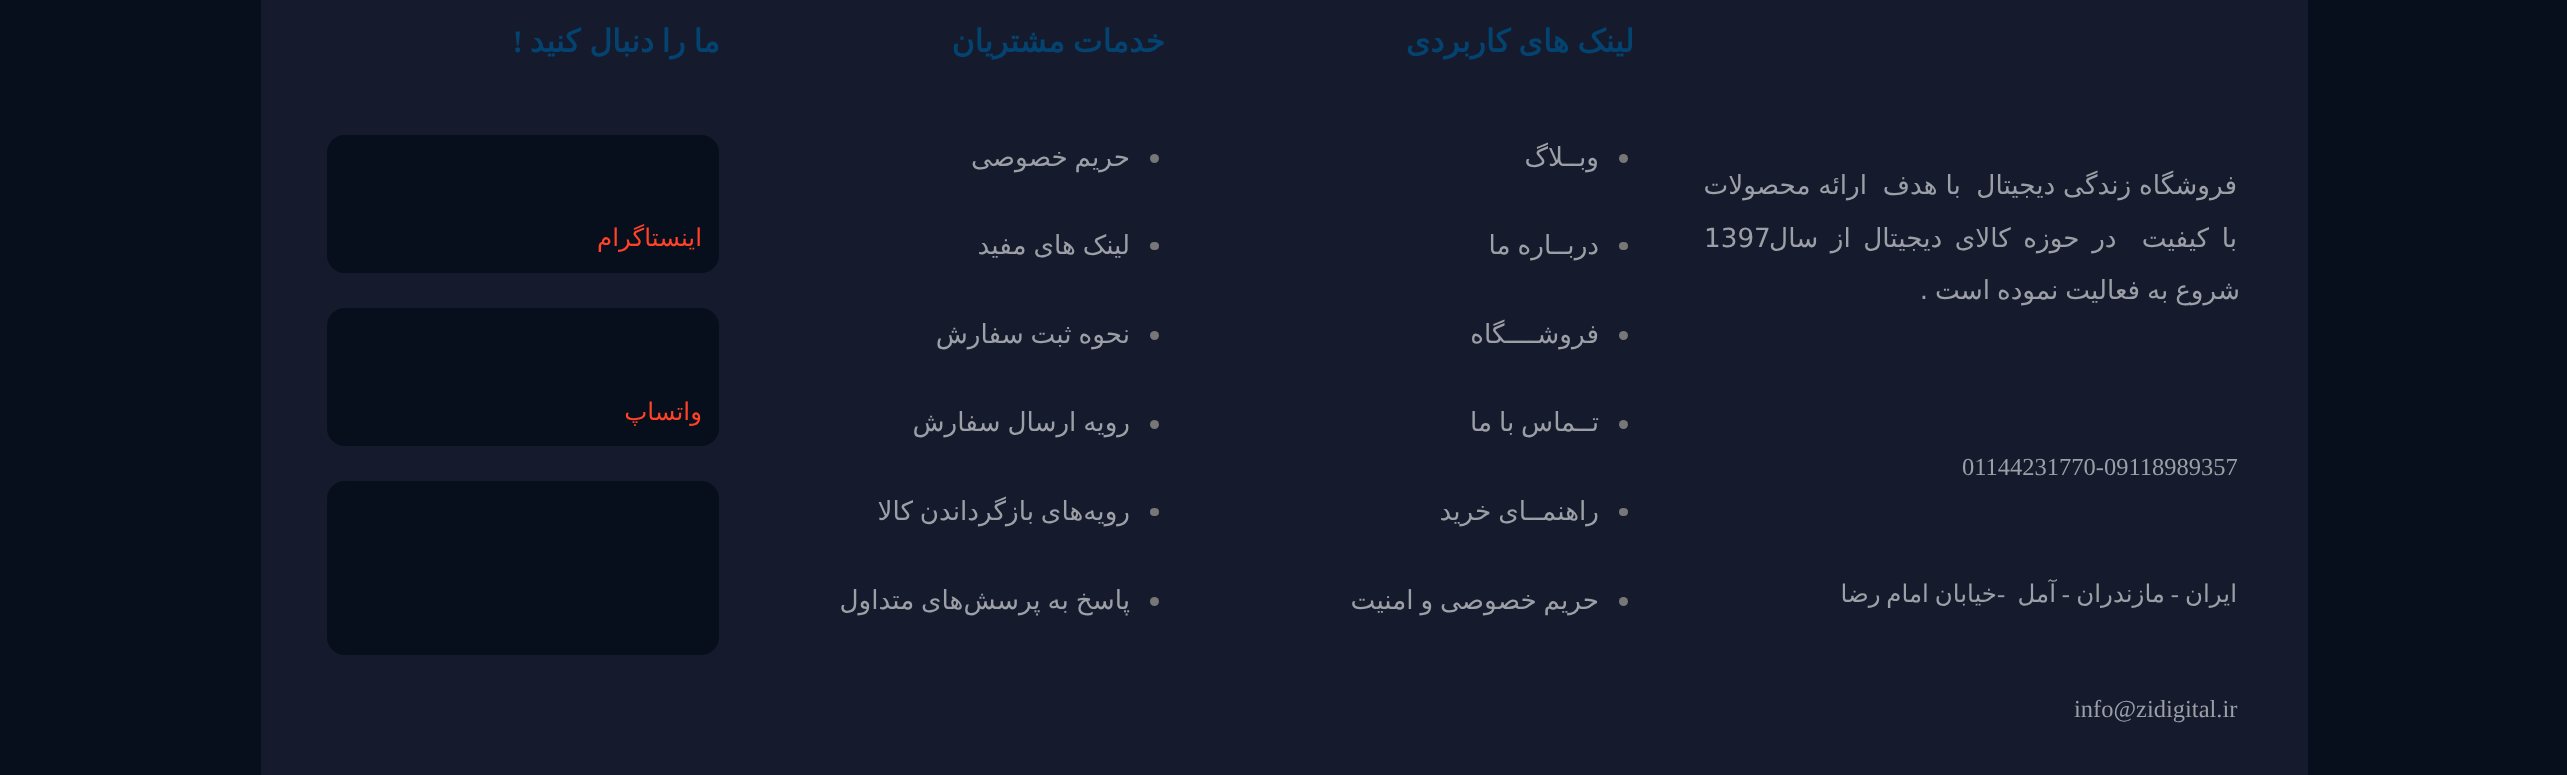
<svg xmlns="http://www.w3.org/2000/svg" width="2567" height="775">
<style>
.a{font:26.25px DejaVu Sans;direction:rtl;fill:#9d9fa7}
.b{font:26.25px DejaVu Sans;fill:#9d9fa7}
.c{font:24.5px Liberation Serif;fill:#9d9fa7}
.d{font:24.5px DejaVu Sans;direction:rtl;fill:#9d9fa7}
.e{font:24.5px Liberation Serif;direction:rtl;fill:#9d9fa7}
.f{font:bold 31.5px DejaVu Sans;direction:rtl;fill:#04426f}
.g{font:bold 31.5px Liberation Serif;direction:rtl;fill:#04426f}
.h{font:24.5px DejaVu Sans;direction:rtl;fill:#ff4228}
</style>
<rect width="100%" height="100%" fill="#070e1c"/>
<path fill="#151b2d" d="M261 0h2047v775H261z"/>
<circle fill="#777" cx="1623.5" cy="158.5" r="4.5"/>
<rect fill="#777" x="1619" y="242" width="9" height="8" rx="4"/>
<circle fill="#777" cx="1623.5" cy="335.5" r="4.5"/>
<circle fill="#777" cx="1623.5" cy="424.5" r="4.5"/>
<rect fill="#777" x="1619" y="508" width="9" height="8" rx="4"/>
<circle fill="#777" cx="1623.5" cy="601.5" r="4.5"/>
<circle fill="#777" cx="1154.5" cy="158.5" r="4.5"/>
<rect fill="#777" x="1150" y="242" width="9" height="8" rx="4"/>
<circle fill="#777" cx="1154.5" cy="335.5" r="4.5"/>
<circle fill="#777" cx="1154.5" cy="424.5" r="4.5"/>
<rect fill="#777" x="1150" y="508" width="9" height="8" rx="4"/>
<circle fill="#777" cx="1154.5" cy="601.5" r="4.5"/>
<rect fill="#070e1c" x="327" y="135" width="392" height="138" rx="18"/>
<rect fill="#070e1c" x="327" y="308" width="392" height="138" rx="18"/>
<rect fill="#070e1c" x="327" y="481" width="392" height="174" rx="18"/>
<text class="a" xml:space="preserve" x="2237" y="194" word-spacing="-0.5">فروشگاه زندگی دیجیتال  با هدف  ارائه محصولات</text>
<text class="a" xml:space="preserve" x="2237" y="247" word-spacing="4.25">با کیفیت  در حوزه کالای دیجیتال از سال</text>
<text class="b" x="1704" y="247">1397</text>
<text class="a" x="2240" y="299" word-spacing="-1.5">شروع به فعالیت نموده است .</text>
<text class="c" x="1962" y="475">01144231770-09118989357</text>
<text class="d" x="2237" y="602">ایران</text>
<text class="e" x="2179" y="602">-</text>
<text class="d" x="2165" y="602">مازندران</text>
<text class="e" x="2070" y="602">-</text>
<text class="d" x="2056" y="602">آمل</text>
<text class="c" x="1997" y="602">-</text>
<text class="d" x="1997" y="602" word-spacing="-2">خیابان امام رضا</text>
<text class="c" x="2074" y="717">info@zidigital.ir</text>
<text class="f" x="1634" y="52" word-spacing="-2">لینک های کاربردی</text>
<text class="a" x="1599" y="166">وبــلاگ</text>
<text class="a" x="1599" y="254" word-spacing="-1.5">دربــاره ما</text>
<text class="a" x="1599" y="343">فروشــــگاه</text>
<text class="a" x="1599" y="431" word-spacing="-1.5">تــماس با ما</text>
<text class="a" x="1599" y="520" word-spacing="-1.5">راهنمــای خرید</text>
<text class="a" x="1599" y="609" word-spacing="-1.5">حریم خصوصی و امنیت</text>
<text class="f" x="1165" y="52" word-spacing="-2">خدمات مشتریان</text>
<text class="a" x="1130" y="166" word-spacing="-1.5">حریم خصوصی</text>
<text class="a" x="1130" y="254" word-spacing="-1.5">لینک های مفید</text>
<text class="a" x="1130" y="343" word-spacing="-1.5">نحوه ثبت سفارش</text>
<text class="a" x="1130" y="431" word-spacing="-1.5">رویه ارسال سفارش</text>
<text class="a" x="1130" y="520" word-spacing="-1.5">رویه‌های بازگرداندن کالا</text>
<text class="a" x="1130" y="609" word-spacing="-1.5">پاسخ به پرسش‌های متداول</text>
<text class="f" x="720" y="52" word-spacing="-2">ما را</text>
<text class="f" x="654" y="52" word-spacing="-1">دنبال کنید</text>
<text class="g" x="523" y="52">!</text>
<text class="h" x="702" y="246">اینستاگرام</text>
<text class="h" x="702" y="420">واتساپ</text>
</svg>
